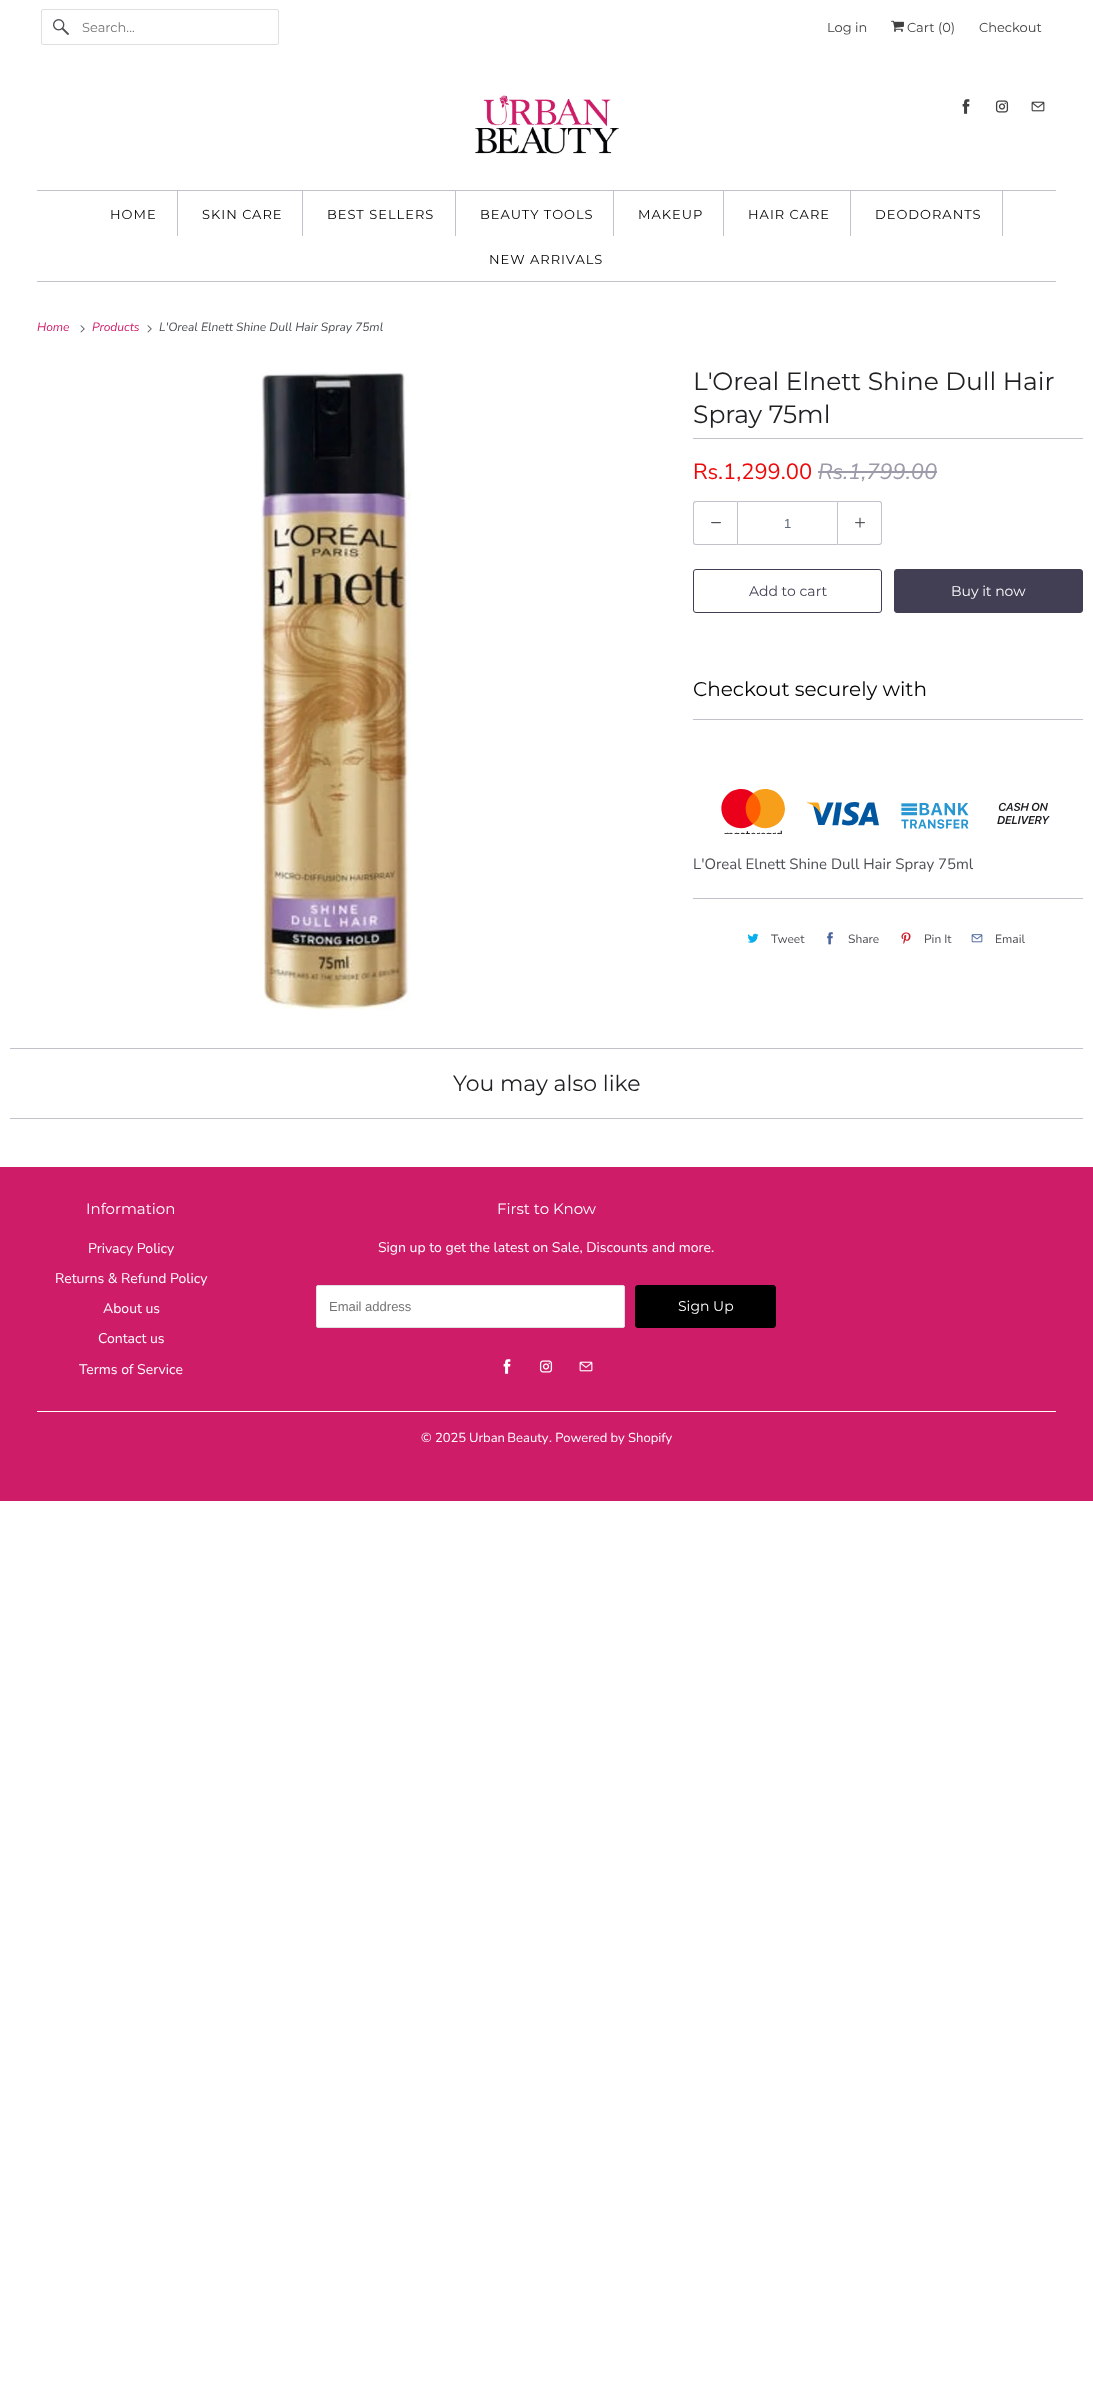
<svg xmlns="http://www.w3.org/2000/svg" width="1093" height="2383">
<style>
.a{font:13px Montserrat;fill:#757575}
.b{font:13px Montserrat;fill:#404040}
.c{font:13px Montserrat;letter-spacing:1px;fill:#000}
.d{font:italic 12px Nunito Sans;fill:#ce1c68}
.e{font:italic 12px Nunito Sans;fill:#4b4f54}
.f{font:25px Montserrat;fill:#1f2022}
.g{font:22px Nunito Sans;fill:#ee0909}
.h{font:italic 22px Nunito Sans;fill:#9d9ba9}
.i{font:13px Liberation Sans;fill:#5f6a7d}
.j{font:14px Montserrat;fill:#423f54}
.k{font:14px Montserrat;fill:#fff}
.l{font:20px Montserrat;fill:#000}
.m{font:15px Nunito Sans;fill:#4b4f54}
.n{font:12px Nunito Sans;fill:#4b4f54}
.o{font:22px Montserrat;fill:#1f2022}
.p{font:15px Montserrat;fill:#fff}
.q{font:14px Nunito Sans;fill:#fff}
.r{font:13px Liberation Sans;fill:#757575}
.s{font:13px Nunito Sans;fill:#fff}
</style>
<rect width="100%" height="100%" fill="#fff"/>
<rect fill="none" stroke="#dfdfdf" x="41.5" y="9.5" width="237" height="35" rx="1.5"/>
<image href="1.png" x="53" y="19" width="16" height="16"/>
<image href="2.png" x="891" y="20" width="13" height="12"/>
<image href="3.png" x="475" y="95" width="144" height="59"/>
<image href="4.png" x="962" y="99" width="8" height="15"/>
<image href="5.png" x="995" y="100" width="14" height="13"/>
<image href="6.png" x="1031" y="101" width="14" height="11"/>
<path fill="#c2c1cc" d="M37 190h1019v1H37z"/>
<path fill="#c2c1cc" d="M37 281h1019v1H37z"/>
<path fill="#c2c1cc" d="M177 191h1v45H177z"/>
<path fill="#c2c1cc" d="M302 191h1v45H302z"/>
<path fill="#c2c1cc" d="M455 191h1v45H455z"/>
<path fill="#c2c1cc" d="M613 191h1v45H613z"/>
<path fill="#c2c1cc" d="M723 191h1v45H723z"/>
<path fill="#c2c1cc" d="M850 191h1v45H850z"/>
<path fill="#c2c1cc" d="M1002 191h1v45H1002z"/>
<image href="7.png" x="80" y="325" width="5" height="8"/>
<image href="7.png" x="147" y="325" width="5" height="8"/>
<image href="8.png" x="260" y="372" width="151" height="638"/>
<path fill="#c2c1cc" d="M693 438h390v1H693z"/>
<path fill="#9d9ba9" d="M818 471h119v2H818z"/>
<path fill="#c2c1cc" fill-rule="evenodd" d="M696 501h41v44h-41c-2 0-3-1-3-3v-38c0-2 1-3 3-3zm0 1h41v42h-41c-1 0-2-1-2-2v-38c0-1 1-2 2-2z"/>
<image href="9.png" x="711" y="522" width="10" height="2"/>
<path fill="none" stroke="#c2c1cc" d="M737.5 501.5h100v43H737.5z"/>
<path fill="#c2c1cc" fill-rule="evenodd" d="M838 501h41c2 0 3 1 3 3v38c0 2-1 3-3 3h-41zm0 1h41c1 0 2 1 2 2v38c0 1-1 2-2 2h-41z"/>
<image href="10.png" x="855" y="517" width="10" height="11"/>
<rect fill="none" stroke="#423f54" x="693.5" y="569.5" width="188" height="43" rx="2.5"/>
<rect fill="#423f54" stroke="#423f54" x="894.5" y="569.5" width="188" height="43" rx="2.5"/>
<path fill="#c2c1cc" d="M693 719h390v1H693z"/>
<image href="11.png" x="721" y="789" width="329" height="45"/>
<path fill="#c2c1cc" d="M693 898h390v1H693z"/>
<image href="12.png" x="747" y="933" width="12" height="10"/>
<image href="13.png" x="827" y="932" width="6" height="13"/>
<image href="14.png" x="901" y="932" width="10" height="12"/>
<image href="15.png" x="971" y="934" width="12" height="9"/>
<path fill="#c2c1cc" d="M10 1048h1073v1H10z"/>
<path fill="#c2c1cc" d="M10 1118h1073v1H10z"/>
<path fill="#ce1c68" d="M0 1167h1093v334H0z"/>
<rect fill="#fff" stroke="#dfdfdf" x="316.5" y="1285.5" width="308" height="42" rx="1.5"/>
<rect fill="#000" stroke="#000" x="635.5" y="1285.5" width="140" height="42" rx="2.5"/>
<image href="16.png" x="503" y="1359" width="8" height="15"/>
<image href="17.png" x="539" y="1360" width="14" height="13"/>
<image href="18.png" x="579" y="1361" width="14" height="11"/>
<path fill="#fff" d="M37 1411h1019v1H37z"/>
<text class="a" x="82" y="32">Search...</text>
<text class="b" x="827" y="32">Log in</text>
<text class="b" x="907" y="32">Cart (0)</text>
<text class="b" x="979" y="32">Checkout</text>
<text class="c" x="110" y="219">HOME</text>
<text class="c" x="202" y="219">SKIN CARE</text>
<text class="c" x="327" y="219">BEST SELLERS</text>
<text class="c" x="480" y="219">BEAUTY TOOLS</text>
<text class="c" x="638" y="219">MAKEUP</text>
<text class="c" x="748" y="219">HAIR CARE</text>
<text class="c" x="875" y="219">DEODORANTS</text>
<text class="c" x="489" y="264">NEW ARRIVALS</text>
<text class="d" x="37" y="331">Home</text>
<text class="d" x="92" y="331">Products</text>
<text class="e" x="159" y="331">L'Oreal Elnett Shine Dull Hair Spray 75ml</text>
<text class="f" x="693" y="390">L'Oreal Elnett Shine Dull Hair</text>
<text class="f" x="693" y="423">Spray 75ml</text>
<text class="g" x="693" y="479">Rs.1,299.00</text>
<text class="h" x="818" y="479">Rs.1,799.00</text>
<text class="i" x="784" y="528">1</text>
<text class="j" x="749" y="596">Add to cart</text>
<text class="k" x="951" y="596">Buy it now</text>
<text class="l" x="693" y="696">Checkout securely with</text>
<text class="m" x="693" y="869">L'Oreal Elnett Shine Dull Hair Spray 75ml</text>
<text class="n" x="771" y="943">Tweet</text>
<text class="n" x="848" y="943">Share</text>
<text class="n" x="924" y="943">Pin It</text>
<text class="n" x="995" y="943">Email</text>
<text class="o" x="453" y="1091">You may also like</text>
<text class="p" x="86" y="1214">Information</text>
<text class="q" x="88" y="1253">Privacy Policy</text>
<text class="q" x="55" y="1283">Returns &amp; Refund Policy</text>
<text class="q" x="103" y="1313">About us</text>
<text class="q" x="98" y="1343">Contact us</text>
<text class="q" x="79" y="1374">Terms of Service</text>
<text class="p" x="497" y="1214">First to Know</text>
<text class="q" x="378" y="1252">Sign up to get the latest on Sale, Discounts and more.</text>
<text class="r" x="329" y="1311">Email address</text>
<text class="k" x="678" y="1311">Sign Up</text>
<text class="s" x="421" y="1442">© 2025</text>
<text class="s" x="469" y="1442" word-spacing="-1">Urban Beauty</text>
<text class="s" x="549" y="1442">. Powered by Shopify</text>
</svg>
